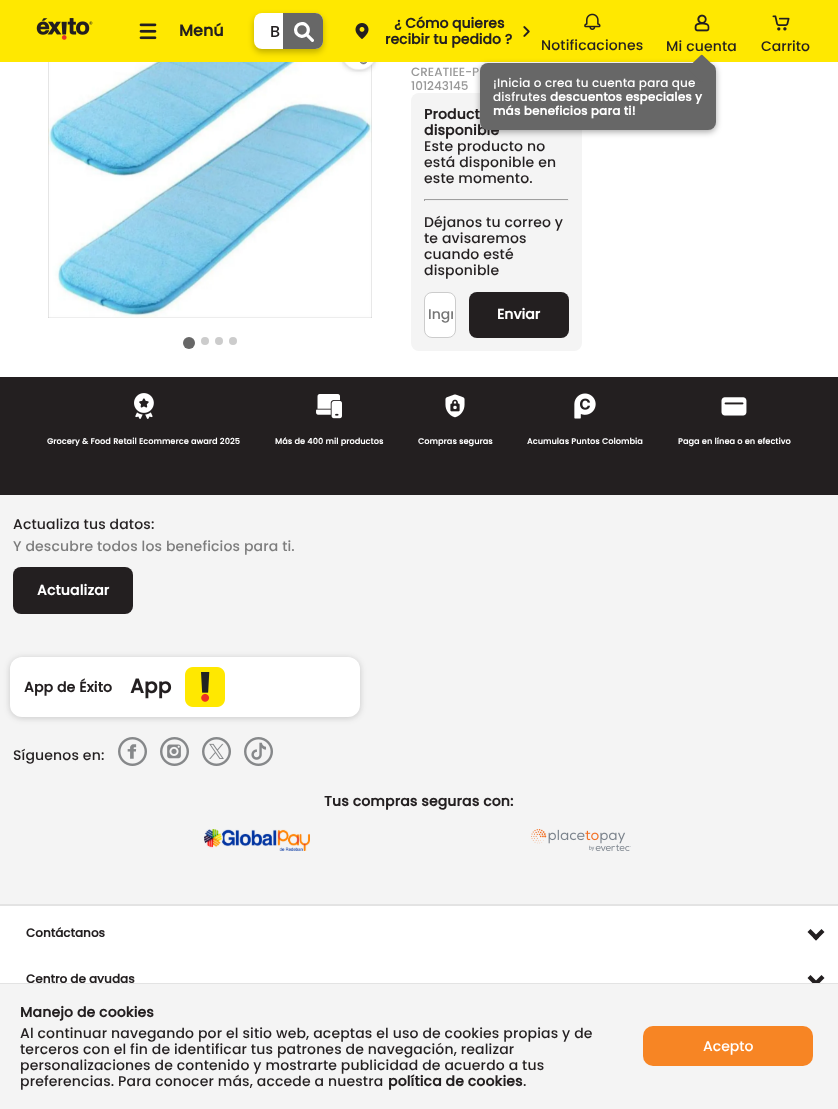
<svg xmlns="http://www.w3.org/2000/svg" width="838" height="1109">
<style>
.a{font:bold 16px Poppins;fill:#231f20}
.b{font:500 16px Poppins;fill:#231f20}
.c{font:bold 14px Poppins;fill:#231f20}
.d{font:500 14px Poppins;letter-spacing:0.15px;fill:#231f20}
.e{font:500 14px Poppins;fill:#231f20}
.f{font:500 12px Poppins;fill:#999}
.g{font:bold 14px Poppins;letter-spacing:0.15px;fill:#231f20}
.h{font:500 12px Poppins;letter-spacing:0.15px;fill:#fff}
.i{font:bold 12px Poppins;letter-spacing:0.15px;fill:#fff}
.j{font:500 14px Poppins;fill:#757575}
.k{font:bold 14px Poppins;fill:#fff}
.l{font:bold 8px Poppins;letter-spacing:0.15px;fill:#fff}
.m{font:500 14px Poppins;letter-spacing:0.15px;fill:#7d7d7d}
.n{font:bold 14px Poppins;letter-spacing:0.15px;fill:#fff}
.o{font:bold 20px Poppins;letter-spacing:0.15px;fill:#231f20}
.p{font:bold 12px Poppins;fill:#231f20}
.q{font:500 14px Poppins;fill:#fff}
</style>
<defs>
<clipPath id="clip1"><path d="M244 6h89v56h-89zm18 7h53c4.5 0 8 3.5 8 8v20c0 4.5-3.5 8-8 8h-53c-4.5 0-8-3.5-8-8v-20c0-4.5 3.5-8 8-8z" clip-rule="evenodd"/></clipPath>
<clipPath id="clip2"><path d="M428 304h25v21H428z"/></clipPath>
</defs>
<rect width="100%" height="100%" fill="#fff"/>
<image href="10.png" x="48" y="62" width="324" height="256"/>
<rect fill="#00000029" filter="blur(3px)" x="341" y="34" width="36" height="36" rx="18"/>
<circle fill="#fff" cx="359" cy="52" r="18"/>
<path fill="#ffe800" d="M0 0h838v62H0z"/>
<image href="1.png" x="36" y="18" width="57" height="22"/>
<image href="2.png" x="139" y="23" width="18" height="17"/>
<rect fill="#fff" x="254" y="13" width="69" height="36" rx="8"/>
<g clip-path="url(#clip1)">
<rect fill="#00000042" filter="blur(3px)" x="254" y="16" width="69" height="36" rx="8"/>
</g>
<path fill="#676767" d="M283 13h32c4.5 0 8 3.5 8 8v20c0 4.5-3.5 8-8 8h-32z"/>
<image href="3.png" x="294" y="22" width="20" height="20"/>
<image href="4.png" x="355" y="23" width="14" height="16"/>
<image href="5.png" x="523" y="26" width="7" height="11"/>
<image href="6.png" x="584" y="13" width="17" height="17"/>
<image href="7.png" x="694" y="14" width="16" height="18"/>
<rect fill="#f4f4f4" x="411" y="93" width="171" height="258" rx="8"/>
<rect fill="#00000057" filter="blur(3px)" x="480" y="65" width="236" height="67" rx="8"/>
<image href="8.png" x="772" y="15" width="18" height="16"/>
<image href="9.png" x="342" y="62" width="34" height="10"/>
<circle fill="#676767" cx="189" cy="343" r="6"/>
<circle fill="#ccc" cx="205" cy="341" r="4"/>
<circle fill="#ccc" cx="219" cy="341" r="4"/>
<circle fill="#ccc" cx="233" cy="341" r="4"/>
<path fill="#9f9f9f" d="M424 199h145v1H424z"/>
<path fill="#eee" d="M568 199h1v2H568z"/>
<path fill="#eee" d="M424 200h145v1H424z"/>
<path fill="#9f9f9f" d="M424 199h1v2H424z"/>
<rect fill="#fff" stroke="#ccc" x="424.5" y="292.5" width="31" height="45" rx="7.5"/>
<rect fill="#231f20" x="469" y="292" width="100" height="46" rx="8"/>
<path fill="#231f20" d="M0 377h838v118H0z"/>
<image href="11.png" x="134" y="393" width="20" height="26"/>
<image href="12.png" x="316" y="394" width="26" height="25"/>
<image href="13.png" x="445" y="394" width="20" height="24"/>
<image href="14.png" x="574" y="393" width="22" height="26"/>
<image href="15.png" x="721" y="397" width="26" height="19"/>
<path fill="#f4f4f4" d="M0 495h838v409H0z"/>
<rect fill="#231f20" x="13" y="567" width="120" height="47" rx="8"/>
<rect fill="#2e2e2e38" filter="blur(3px)" x="10" y="658" width="350" height="60" rx="12"/>
<rect fill="#fff" x="10" y="657" width="350" height="60" rx="12"/>
<image href="16.png" x="185" y="667" width="40" height="40"/>
<image href="17.png" x="118" y="737" width="29" height="29"/>
<image href="18.png" x="160" y="737" width="29" height="29"/>
<image href="19.png" x="202" y="737" width="29" height="29"/>
<image href="20.png" x="244" y="737" width="29" height="29"/>
<image href="21.png" x="204" y="829" width="106" height="22"/>
<image href="22.png" x="531" y="829" width="100" height="22"/>
<path fill="#e3e3e3" d="M0 904h838v2H0z"/>
<path fill="#231f20" d="M816 940.5l-8.5-8.5l3-3l8.5 8.5z"/>
<path fill="#231f20" d="M816 940.5l-3-3l8.5-8.5l3 3zm0 46l-8.5-8.5l3-3l8.5 8.5z"/>
<path fill="#231f20" d="M816 986.5l-3-3l8.5-8.5l3 3z"/>
<text class="a" x="179" y="36">Menú</text>
<text class="b" x="270" y="37">B</text>
<text class="c" x="394" y="28">¿ Cómo quieres</text>
<text class="c" x="385" y="44">recibir tu pedido ?</text>
<text class="d" x="541" y="50">Notificaciones</text>
<text class="d" x="666" y="51">Mi cuenta</text>
<text class="e" x="761" y="51">Carrito</text>
<text class="f" x="411" y="76">CREATIEE-P</text>
<text class="f" x="411" y="90">101243145</text>
<text class="g" x="424" y="119">Product</text>
<text class="g" x="424" y="135">disponible</text>
<rect fill="#676767" x="480" y="63" width="236" height="67" rx="8"/>
<text class="h" x="493" y="87">¡Inicia o crea tu cuenta para que</text>
<path fill="#676767" d="M703 55.5l11.5 11c1 1 1 2 0 3l-11.5 11.5c-.5 .5-2 .5-2.5 0l-11.5-11.5c-.5-1-.5-2 0-3l11.5-11c.5-1 2-1 2.5 0z"/>
<text class="i" x="493" y="115">más beneficios para ti!</text>
<text class="i" x="550" y="101">descuentos especiales y</text>
<text class="h" x="493" y="101">disfrutes</text>
<text class="d" x="424" y="151">Este producto no</text>
<text class="d" x="424" y="167">está disponible en</text>
<text class="d" x="424" y="183">este momento.</text>
<text class="d" x="424" y="227">Déjanos tu correo y</text>
<text class="d" x="424" y="243">te avisaremos</text>
<text class="d" x="424" y="259">cuando esté</text>
<text class="d" x="424" y="275">disponible</text>
<g clip-path="url(#clip2)">
<text class="j" x="428" y="319">Ingr</text>
</g>
<text class="k" x="497" y="319">Enviar</text>
<text class="l" x="47" y="444">Grocery &amp; Food Retail Ecommerce award 2025</text>
<text class="l" x="275" y="444">Más de 400 mil productos</text>
<text class="l" x="418" y="444">Compras seguras</text>
<text class="l" x="527" y="444">Acumulas Puntos Colombia</text>
<text class="l" x="678" y="444">Paga en línea o en efectivo</text>
<text class="d" x="13" y="529">Actualiza tus datos:</text>
<text class="m" x="13" y="551">Y descubre todos los beneficios para ti.</text>
<text class="n" x="37" y="595">Actualizar</text>
<text class="g" x="24" y="692">App de Éxito</text>
<text class="o" x="130" y="693">App</text>
<text class="d" x="13" y="760">Síguenos en:</text>
<text class="g" x="324" y="806">Tus compras seguras con:</text>
<text class="p" x="26" y="937">Contáctanos</text>
<text class="p" x="26" y="983">Centro de ayudas</text>
<path fill="#f4f4f4" d="M0 984h838v125H0z"/>
<path fill="#e3e3e3" d="M0 983h838v1H0z"/>
<text class="g" x="20" y="1017">Manejo de cookies</text>
<text class="d" x="20" y="1038">Al continuar navegando por el sitio web, aceptas el uso de cookies propias y de</text>
<text class="d" x="20" y="1054">terceros con el fin de identificar tus patrones de navegación, realizar</text>
<text class="d" x="20" y="1070">personalizaciones de contenido y mostrarte publicidad de acuerdo a tus</text>
<text class="d" x="20" y="1086">preferencias. Para conocer más, accede a nuestra</text>
<text class="g" x="388" y="1086">política de cookies</text>
<text class="d" x="523" y="1086">.</text>
<rect fill="#f78524" x="643" y="1026" width="170" height="40" rx="10"/>
<text class="q" x="703" y="1051">Acepto</text>
</svg>
